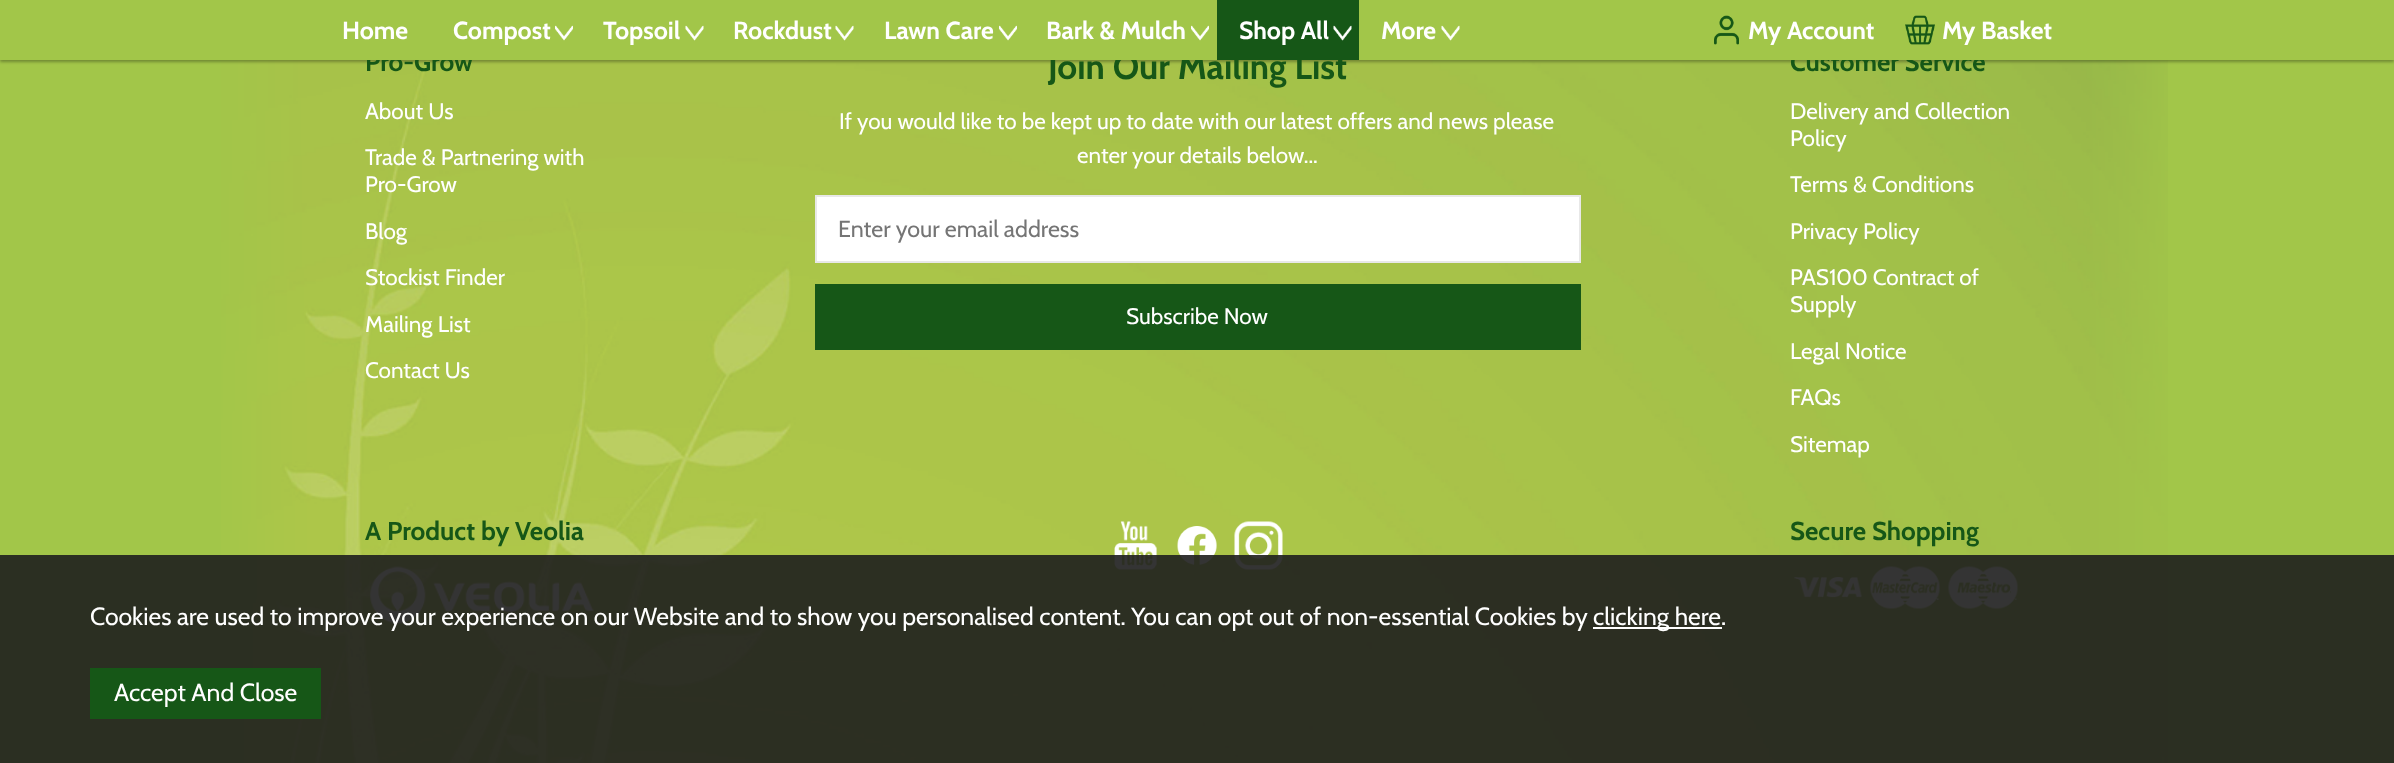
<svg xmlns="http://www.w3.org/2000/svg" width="2394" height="763">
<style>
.a{font:bold 25.9px Cabin;fill:#165717}
.b{font:22.5px Cabin;fill:#fff}
.c{font:bold 34.9px Cabin;fill:#165717}
.d{font:23.25px Cabin;fill:#757575}
.e{font:bold 24.75px Cabin;fill:#fff}
.f{font:24.75px Cabin;fill:#fff}
</style>
<rect width="100%" height="100%" fill="#a2c649"/>
<image href="8.png" x="221" y="60" width="1947" height="703"/>
<path fill="#0000004d" filter="blur(1.5px)" d="M0 2h2394v60H0z"/>
<path fill="#fff" stroke="#e8e8e8" stroke-width="2" d="M816 196h764v66H816z"/>
<path fill="#165717" d="M815 284h766v66H815z"/>
<image href="9.png" x="370" y="566" width="224" height="58"/>
<image href="10.png" x="1114" y="521" width="43" height="49"/>
<image href="11.png" x="1177" y="526" width="40" height="39"/>
<image href="12.png" x="1234" y="521" width="49" height="49"/>
<image href="13.png" x="1794" y="577" width="68" height="21"/>
<image href="14.png" x="1870" y="566" width="70" height="43"/>
<image href="15.png" x="1948" y="566" width="70" height="43"/>
<path fill="#1e1e1ee6" d="M0 555h2394v208H0z"/>
<path fill="#fff" d="M1593 627h129v2H1593z"/>
<path fill="#165717" d="M90 668h231v51H90z"/>
<text class="a" x="365" y="71">Pro-Grow</text>
<text class="b" x="365" y="119">About Us</text>
<text class="b" x="365" y="165">Trade &amp; Partnering with</text>
<text class="b" x="365" y="192">Pro-Grow</text>
<text class="b" x="365" y="239">Blog</text>
<text class="b" x="365" y="285">Stockist Finder</text>
<text class="b" x="365" y="332">Mailing List</text>
<text class="b" x="365" y="378">Contact Us</text>
<text class="c" x="1048" y="79">Join Our Mailing List</text>
<text class="b" x="839" y="129">If you would like to be kept up to date with our latest offers and news please</text>
<text class="b" x="1077" y="163">enter your details below...</text>
<text class="d" x="838" y="237">Enter your email address</text>
<text class="b" x="1126" y="324">Subscribe Now</text>
<text class="a" x="1790" y="71">Customer Service</text>
<path fill="#a2c649" d="M0 0h2394v60H0z"/>
<text class="e" x="1381" y="39">More</text>
<image href="5.png" x="1441" y="25" width="19" height="16"/>
<path fill="#165717" d="M1217 0h142v60H1217z"/>
<text class="e" x="1239" y="39">Shop All</text>
<image href="4.png" x="1333" y="25" width="19" height="16"/>
<text class="e" x="1046" y="39">Bark &amp; Mulch</text>
<image href="3.png" x="1191" y="25" width="18" height="16"/>
<text class="e" x="884" y="39">Lawn Care</text>
<image href="1.png" x="999" y="25" width="18" height="16"/>
<text class="e" x="733" y="39">Rockdust</text>
<image href="2.png" x="835" y="25" width="19" height="16"/>
<text class="e" x="603" y="39">Topsoil</text>
<image href="2.png" x="685" y="25" width="19" height="16"/>
<text class="e" x="453" y="39">Compost</text>
<image href="1.png" x="555" y="25" width="18" height="16"/>
<text class="e" x="342" y="39">Home</text>
<text class="e" x="1748" y="39">My Account</text>
<image href="6.png" x="1714" y="15" width="25" height="30"/>
<text class="e" x="1942" y="39">My Basket</text>
<image href="7.png" x="1905" y="15" width="30" height="30"/>
<text class="b" x="1790" y="119">Delivery and Collection</text>
<text class="b" x="1790" y="146">Policy</text>
<text class="b" x="1790" y="192">Terms &amp; Conditions</text>
<text class="b" x="1790" y="239">Privacy Policy</text>
<text class="b" x="1790" y="285">PAS100 Contract of</text>
<text class="b" x="1790" y="312">Supply</text>
<text class="b" x="1790" y="359">Legal Notice</text>
<text class="b" x="1790" y="405">FAQs</text>
<text class="b" x="1790" y="452">Sitemap</text>
<text class="a" x="365" y="540">A Product by Veolia</text>
<text class="a" x="1790" y="540">Secure Shopping</text>
<text class="f" x="90" y="625">Cookies are used to improve your experience on our Website and to show you personalised content. You can opt out of non-essential Cookies by</text>
<text class="f" x="1593" y="625">clicking here.</text>
<text class="f" x="114" y="701">Accept And Close</text>
</svg>
